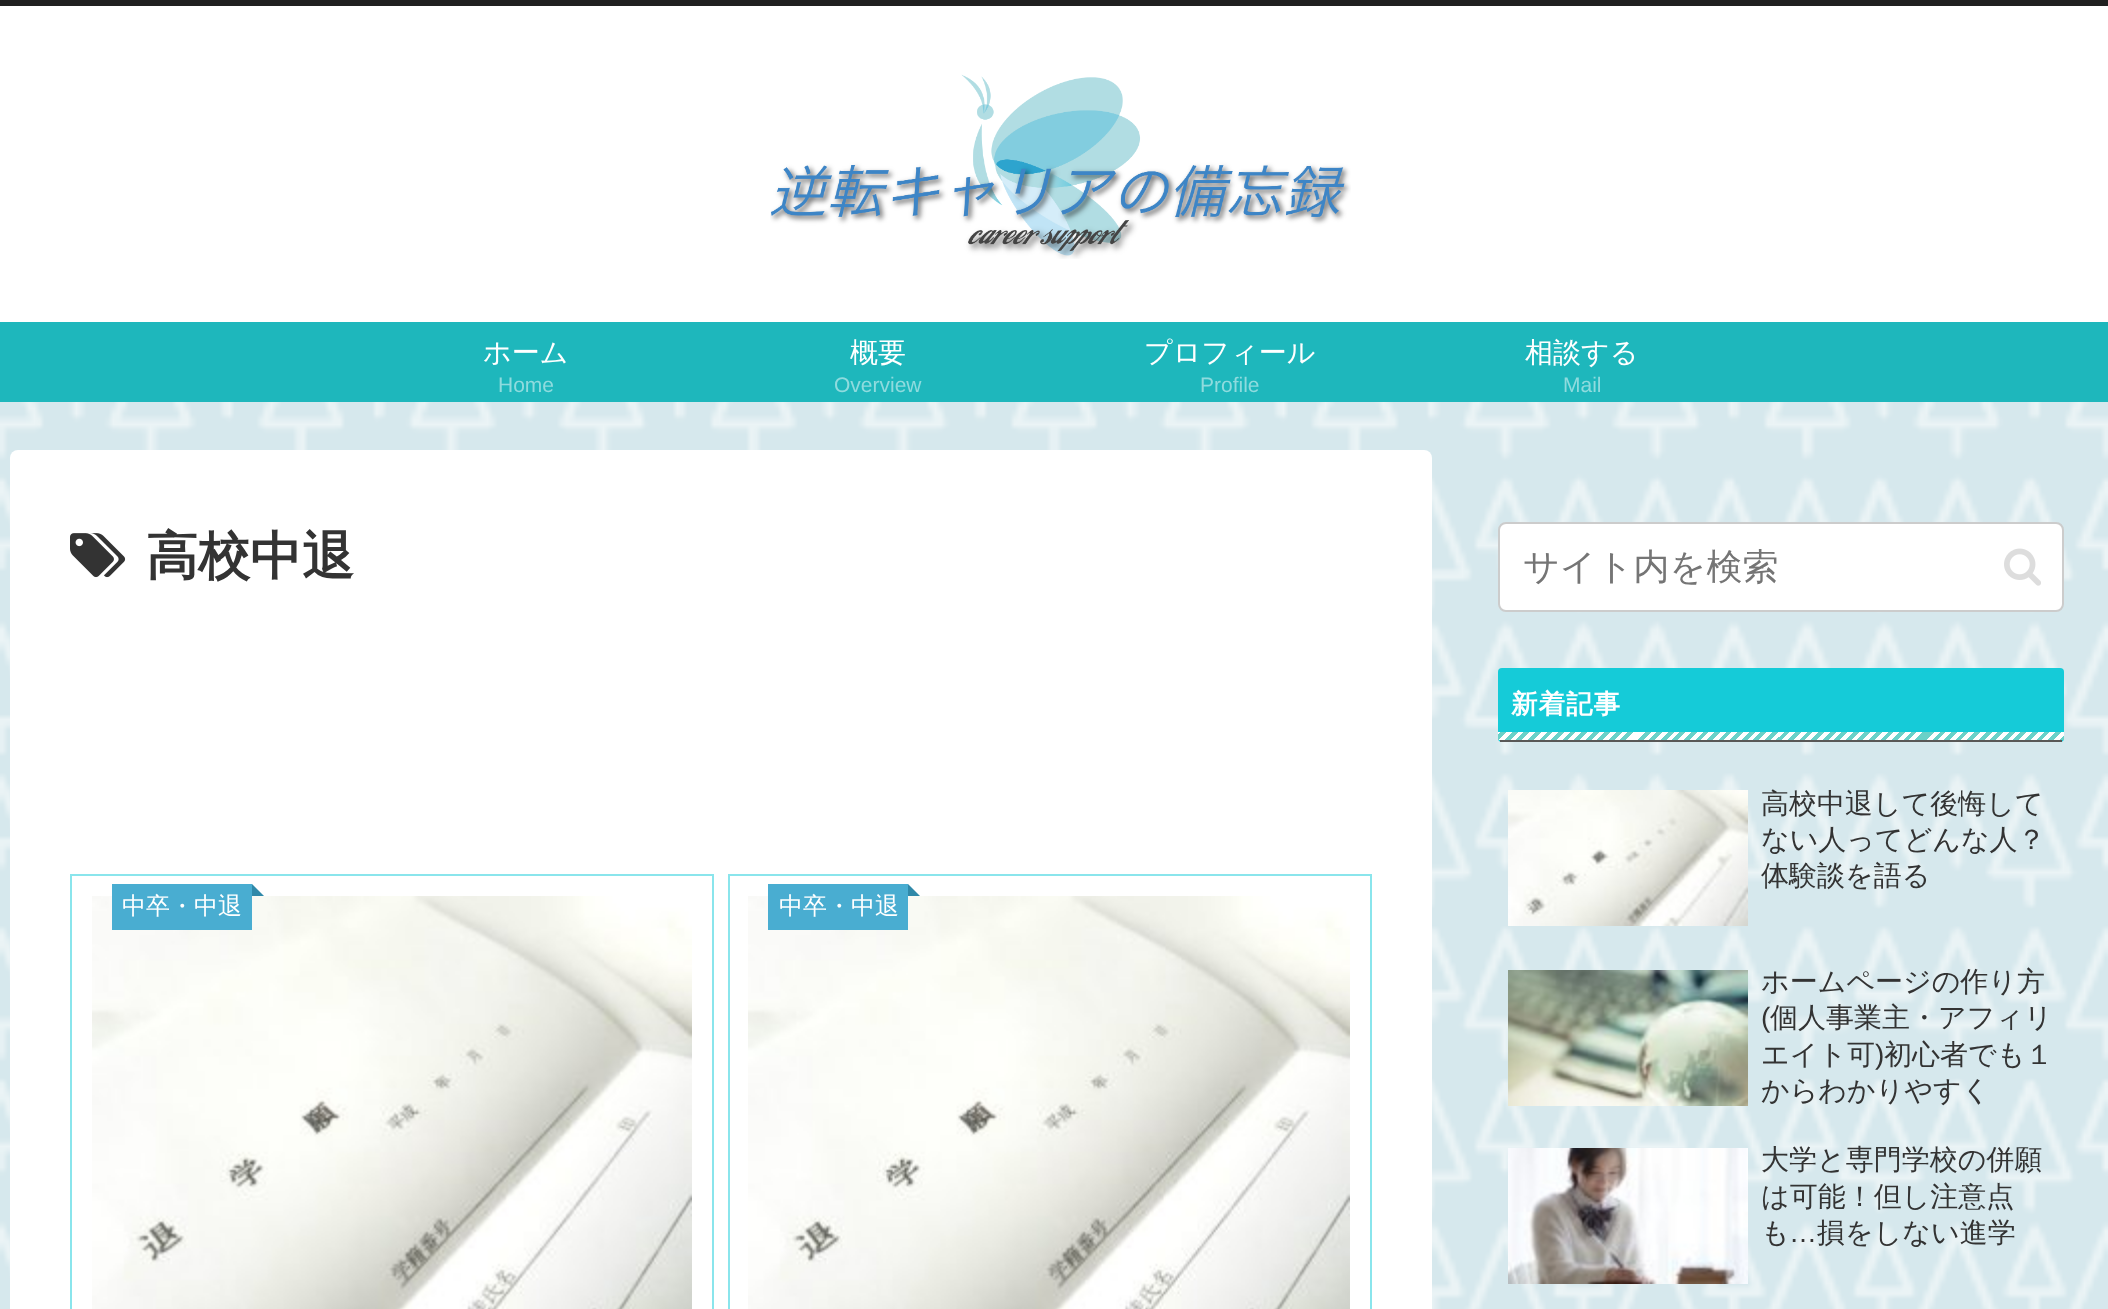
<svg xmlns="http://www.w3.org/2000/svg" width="2108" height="1309">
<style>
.a{font:500 28px WenQuanYi Zen Hei;fill:#fff}
.b{font:21px Liberation Sans;fill:#8fdbde}
.c{font:bold 52px WenQuanYi Zen Hei;fill:#333}
.d{font:500 24px WenQuanYi Zen Hei;fill:#fff}
.e{font:500 36px WenQuanYi Zen Hei;fill:#757575}
.f{font:bold 26.5px WenQuanYi Zen Hei;letter-spacing:1px;fill:#fff}
.g{font:500 28px WenQuanYi Zen Hei;fill:#333}
.h{font:28px Liberation Sans;fill:#333}
</style>
<defs>
<linearGradient id="g1" gradientUnits="userSpaceOnUse" x1="1925" y1="880" x2="1636" y2="591"><stop offset="0" stop-color="#6ad1c8"/><stop offset="0.01" stop-color="#6ad1c8"/><stop offset="0.01" stop-color="#fff"/><stop offset="0.02" stop-color="#fff"/><stop offset="0.02" stop-color="#6ad1c8"/><stop offset="0.03" stop-color="#6ad1c8"/><stop offset="0.03" stop-color="#fff"/><stop offset="0.04" stop-color="#fff"/><stop offset="0.04" stop-color="#6ad1c8"/><stop offset="0.05" stop-color="#6ad1c8"/><stop offset="0.05" stop-color="#fff"/><stop offset="0.06" stop-color="#fff"/><stop offset="0.06" stop-color="#6ad1c8"/><stop offset="0.07" stop-color="#6ad1c8"/><stop offset="0.07" stop-color="#fff"/><stop offset="0.08" stop-color="#fff"/><stop offset="0.08" stop-color="#6ad1c8"/><stop offset="0.09" stop-color="#6ad1c8"/><stop offset="0.09" stop-color="#fff"/><stop offset="0.1" stop-color="#fff"/><stop offset="0.1" stop-color="#6ad1c8"/><stop offset="0.11" stop-color="#6ad1c8"/><stop offset="0.11" stop-color="#fff"/><stop offset="0.12" stop-color="#fff"/><stop offset="0.12" stop-color="#6ad1c8"/><stop offset="0.13" stop-color="#6ad1c8"/><stop offset="0.13" stop-color="#fff"/><stop offset="0.14" stop-color="#fff"/><stop offset="0.14" stop-color="#6ad1c8"/><stop offset="0.15" stop-color="#6ad1c8"/><stop offset="0.15" stop-color="#fff"/><stop offset="0.16" stop-color="#fff"/><stop offset="0.16" stop-color="#6ad1c8"/><stop offset="0.17" stop-color="#6ad1c8"/><stop offset="0.17" stop-color="#fff"/><stop offset="0.18" stop-color="#fff"/><stop offset="0.18" stop-color="#6ad1c8"/><stop offset="0.19" stop-color="#6ad1c8"/><stop offset="0.19" stop-color="#fff"/><stop offset="0.2" stop-color="#fff"/><stop offset="0.2" stop-color="#6ad1c8"/><stop offset="0.21" stop-color="#6ad1c8"/><stop offset="0.21" stop-color="#fff"/><stop offset="0.22" stop-color="#fff"/><stop offset="0.22" stop-color="#6ad1c8"/><stop offset="0.23" stop-color="#6ad1c8"/><stop offset="0.23" stop-color="#fff"/><stop offset="0.24" stop-color="#fff"/><stop offset="0.24" stop-color="#6ad1c8"/><stop offset="0.25" stop-color="#6ad1c8"/><stop offset="0.25" stop-color="#fff"/><stop offset="0.25" stop-color="#fff"/><stop offset="0.25" stop-color="#6ad1c8"/><stop offset="0.26" stop-color="#6ad1c8"/><stop offset="0.26" stop-color="#fff"/><stop offset="0.27" stop-color="#fff"/><stop offset="0.27" stop-color="#6ad1c8"/><stop offset="0.28" stop-color="#6ad1c8"/><stop offset="0.28" stop-color="#fff"/><stop offset="0.29" stop-color="#fff"/><stop offset="0.29" stop-color="#6ad1c8"/><stop offset="0.3" stop-color="#6ad1c8"/><stop offset="0.3" stop-color="#fff"/><stop offset="0.31" stop-color="#fff"/><stop offset="0.31" stop-color="#6ad1c8"/><stop offset="0.32" stop-color="#6ad1c8"/><stop offset="0.32" stop-color="#fff"/><stop offset="0.33" stop-color="#fff"/><stop offset="0.33" stop-color="#6ad1c8"/><stop offset="0.34" stop-color="#6ad1c8"/><stop offset="0.34" stop-color="#fff"/><stop offset="0.35" stop-color="#fff"/><stop offset="0.35" stop-color="#6ad1c8"/><stop offset="0.36" stop-color="#6ad1c8"/><stop offset="0.36" stop-color="#fff"/><stop offset="0.37" stop-color="#fff"/><stop offset="0.37" stop-color="#6ad1c8"/><stop offset="0.38" stop-color="#6ad1c8"/><stop offset="0.38" stop-color="#fff"/><stop offset="0.39" stop-color="#fff"/><stop offset="0.39" stop-color="#6ad1c8"/><stop offset="0.4" stop-color="#6ad1c8"/><stop offset="0.4" stop-color="#fff"/><stop offset="0.41" stop-color="#fff"/><stop offset="0.41" stop-color="#6ad1c8"/><stop offset="0.42" stop-color="#6ad1c8"/><stop offset="0.42" stop-color="#fff"/><stop offset="0.43" stop-color="#fff"/><stop offset="0.43" stop-color="#6ad1c8"/><stop offset="0.44" stop-color="#6ad1c8"/><stop offset="0.44" stop-color="#fff"/><stop offset="0.45" stop-color="#fff"/><stop offset="0.45" stop-color="#6ad1c8"/><stop offset="0.46" stop-color="#6ad1c8"/><stop offset="0.46" stop-color="#fff"/><stop offset="0.47" stop-color="#fff"/><stop offset="0.47" stop-color="#6ad1c8"/><stop offset="0.48" stop-color="#6ad1c8"/><stop offset="0.48" stop-color="#fff"/><stop offset="0.49" stop-color="#fff"/><stop offset="0.49" stop-color="#6ad1c8"/><stop offset="0.5" stop-color="#6ad1c8"/><stop offset="0.5" stop-color="#fff"/><stop offset="0.51" stop-color="#fff"/><stop offset="0.51" stop-color="#6ad1c8"/><stop offset="0.52" stop-color="#6ad1c8"/><stop offset="0.52" stop-color="#fff"/><stop offset="0.53" stop-color="#fff"/><stop offset="0.53" stop-color="#6ad1c8"/><stop offset="0.54" stop-color="#6ad1c8"/><stop offset="0.54" stop-color="#fff"/><stop offset="0.55" stop-color="#fff"/><stop offset="0.55" stop-color="#6ad1c8"/><stop offset="0.56" stop-color="#6ad1c8"/><stop offset="0.56" stop-color="#fff"/><stop offset="0.57" stop-color="#fff"/><stop offset="0.57" stop-color="#6ad1c8"/><stop offset="0.58" stop-color="#6ad1c8"/><stop offset="0.58" stop-color="#fff"/><stop offset="0.59" stop-color="#fff"/><stop offset="0.59" stop-color="#6ad1c8"/><stop offset="0.6" stop-color="#6ad1c8"/><stop offset="0.6" stop-color="#fff"/><stop offset="0.61" stop-color="#fff"/><stop offset="0.61" stop-color="#6ad1c8"/><stop offset="0.62" stop-color="#6ad1c8"/><stop offset="0.62" stop-color="#fff"/><stop offset="0.63" stop-color="#fff"/><stop offset="0.63" stop-color="#6ad1c8"/><stop offset="0.64" stop-color="#6ad1c8"/><stop offset="0.64" stop-color="#fff"/><stop offset="0.65" stop-color="#fff"/><stop offset="0.65" stop-color="#6ad1c8"/><stop offset="0.66" stop-color="#6ad1c8"/><stop offset="0.66" stop-color="#fff"/><stop offset="0.67" stop-color="#fff"/><stop offset="0.67" stop-color="#6ad1c8"/><stop offset="0.68" stop-color="#6ad1c8"/><stop offset="0.68" stop-color="#fff"/><stop offset="0.69" stop-color="#fff"/><stop offset="0.69" stop-color="#6ad1c8"/><stop offset="0.7" stop-color="#6ad1c8"/><stop offset="0.7" stop-color="#fff"/><stop offset="0.71" stop-color="#fff"/><stop offset="0.71" stop-color="#6ad1c8"/><stop offset="0.72" stop-color="#6ad1c8"/><stop offset="0.72" stop-color="#fff"/><stop offset="0.73" stop-color="#fff"/><stop offset="0.73" stop-color="#6ad1c8"/><stop offset="0.74" stop-color="#6ad1c8"/><stop offset="0.74" stop-color="#fff"/><stop offset="0.75" stop-color="#fff"/><stop offset="0.75" stop-color="#6ad1c8"/><stop offset="0.75" stop-color="#6ad1c8"/><stop offset="0.75" stop-color="#fff"/><stop offset="0.76" stop-color="#fff"/><stop offset="0.76" stop-color="#6ad1c8"/><stop offset="0.77" stop-color="#6ad1c8"/><stop offset="0.77" stop-color="#fff"/><stop offset="0.78" stop-color="#fff"/><stop offset="0.78" stop-color="#6ad1c8"/><stop offset="0.79" stop-color="#6ad1c8"/><stop offset="0.79" stop-color="#fff"/><stop offset="0.8" stop-color="#fff"/><stop offset="0.8" stop-color="#6ad1c8"/><stop offset="0.81" stop-color="#6ad1c8"/><stop offset="0.81" stop-color="#fff"/><stop offset="0.82" stop-color="#fff"/><stop offset="0.82" stop-color="#6ad1c8"/><stop offset="0.83" stop-color="#6ad1c8"/><stop offset="0.83" stop-color="#fff"/><stop offset="0.84" stop-color="#fff"/><stop offset="0.84" stop-color="#6ad1c8"/><stop offset="0.85" stop-color="#6ad1c8"/><stop offset="0.85" stop-color="#fff"/><stop offset="0.86" stop-color="#fff"/><stop offset="0.86" stop-color="#6ad1c8"/><stop offset="0.87" stop-color="#6ad1c8"/><stop offset="0.87" stop-color="#fff"/><stop offset="0.88" stop-color="#fff"/><stop offset="0.88" stop-color="#6ad1c8"/><stop offset="0.89" stop-color="#6ad1c8"/><stop offset="0.89" stop-color="#fff"/><stop offset="0.9" stop-color="#fff"/><stop offset="0.9" stop-color="#6ad1c8"/><stop offset="0.91" stop-color="#6ad1c8"/><stop offset="0.91" stop-color="#fff"/><stop offset="0.92" stop-color="#fff"/><stop offset="0.92" stop-color="#6ad1c8"/><stop offset="0.93" stop-color="#6ad1c8"/><stop offset="0.93" stop-color="#fff"/><stop offset="0.94" stop-color="#fff"/><stop offset="0.94" stop-color="#6ad1c8"/><stop offset="0.95" stop-color="#6ad1c8"/><stop offset="0.95" stop-color="#fff"/><stop offset="0.96" stop-color="#fff"/><stop offset="0.96" stop-color="#6ad1c8"/><stop offset="0.97" stop-color="#6ad1c8"/><stop offset="0.97" stop-color="#fff"/><stop offset="0.98" stop-color="#fff"/><stop offset="0.98" stop-color="#6ad1c8"/><stop offset="0.99" stop-color="#6ad1c8"/><stop offset="0.99" stop-color="#fff"/><stop offset="1" stop-color="#fff"/></linearGradient>
</defs>
<rect width="100%" height="100%" fill="#fff"/>
<image href="1.png" x="0" y="402" width="2108" height="907"/>
<path fill="#202020" d="M0 0h2108v6H0z"/>
<image href="2.png" x="770" y="74" width="581" height="185"/>
<path fill="#1eb7bc" d="M0 322h2108v80H0z"/>
<rect fill="#fff" x="10" y="450" width="1422" height="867" rx="8"/>
<image href="3.png" x="70" y="533" width="56" height="45"/>
<path fill="none" stroke="#8ae5ec" stroke-width="2" d="M71 875h642v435H71z"/>
<image href="4.png" x="92" y="896" width="600" height="413"/>
<path fill="#49add1" d="M112 884h140v46H112z"/>
<path fill="#3089a9" d="M264 896h-12v-12z"/>
<path fill="none" stroke="#8ae5ec" stroke-width="2" d="M729 875h642v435H729z"/>
<image href="5.png" x="748" y="896" width="602" height="413"/>
<path fill="#49add1" d="M768 884h140v46H768z"/>
<path fill="#3089a9" d="M920 896h-12v-12z"/>
<rect fill="#fff" stroke="#ccc" stroke-width="2" x="1499" y="523" width="564" height="88" rx="7"/>
<image href="6.png" x="2004" y="548" width="37" height="38"/>
<rect fill="#15cbd8" x="1498" y="668" width="566" height="74" rx="4"/>
<path fill="#595857" d="M1500 740h562v2H1500z"/>
<path fill="url(#g1)" d="M1498 732h566v8H1498z"/>
<image href="7.png" x="1508" y="790" width="240" height="136"/>
<image href="8.png" x="1508" y="970" width="240" height="136"/>
<image href="9.png" x="1508" y="1148" width="240" height="136"/>
<text class="a" x="483" y="362">ホーム</text>
<text class="b" x="498" y="392">Home</text>
<text class="a" x="850" y="362">概要</text>
<text class="b" x="834" y="392">Overview</text>
<text class="a" x="1144" y="362">プロフィール</text>
<text class="b" x="1200" y="392">Profile</text>
<text class="a" x="1525" y="362">相談する</text>
<text class="b" x="1563" y="392">Mail</text>
<text class="c" x="146" y="574">高校中退</text>
<text class="d" x="122" y="914">中卒・中退</text>
<text class="d" x="779" y="914">中卒・中退</text>
<text class="e" x="1523" y="579">サイト内を検索</text>
<text class="f" x="1511" y="713">新着記事</text>
<text class="g" x="1761" y="813">高校中退して後悔して</text>
<text class="g" x="1761" y="849">ない人ってどんな人？</text>
<text class="g" x="1761" y="885">体験談を語る</text>
<text class="g" x="1761" y="991">ホームページの作り方</text>
<text class="h" x="1761" y="1027">(</text>
<text class="g" x="1770" y="1027">個人事業主・アフィリ</text>
<text class="g" x="1761" y="1064">エイト可</text>
<text class="h" x="1875" y="1064">)</text>
<text class="g" x="1884" y="1064">初心者でも１</text>
<text class="g" x="1761" y="1100">からわかりやすく</text>
<text class="g" x="1761" y="1169">大学と専門学校の併願</text>
<text class="g" x="1761" y="1206">は可能！但し注意点</text>
<text class="g" x="1761" y="1242">も</text>
<text class="h" x="1789" y="1242">…</text>
<text class="g" x="1817" y="1242">損をしない進学</text>
</svg>
